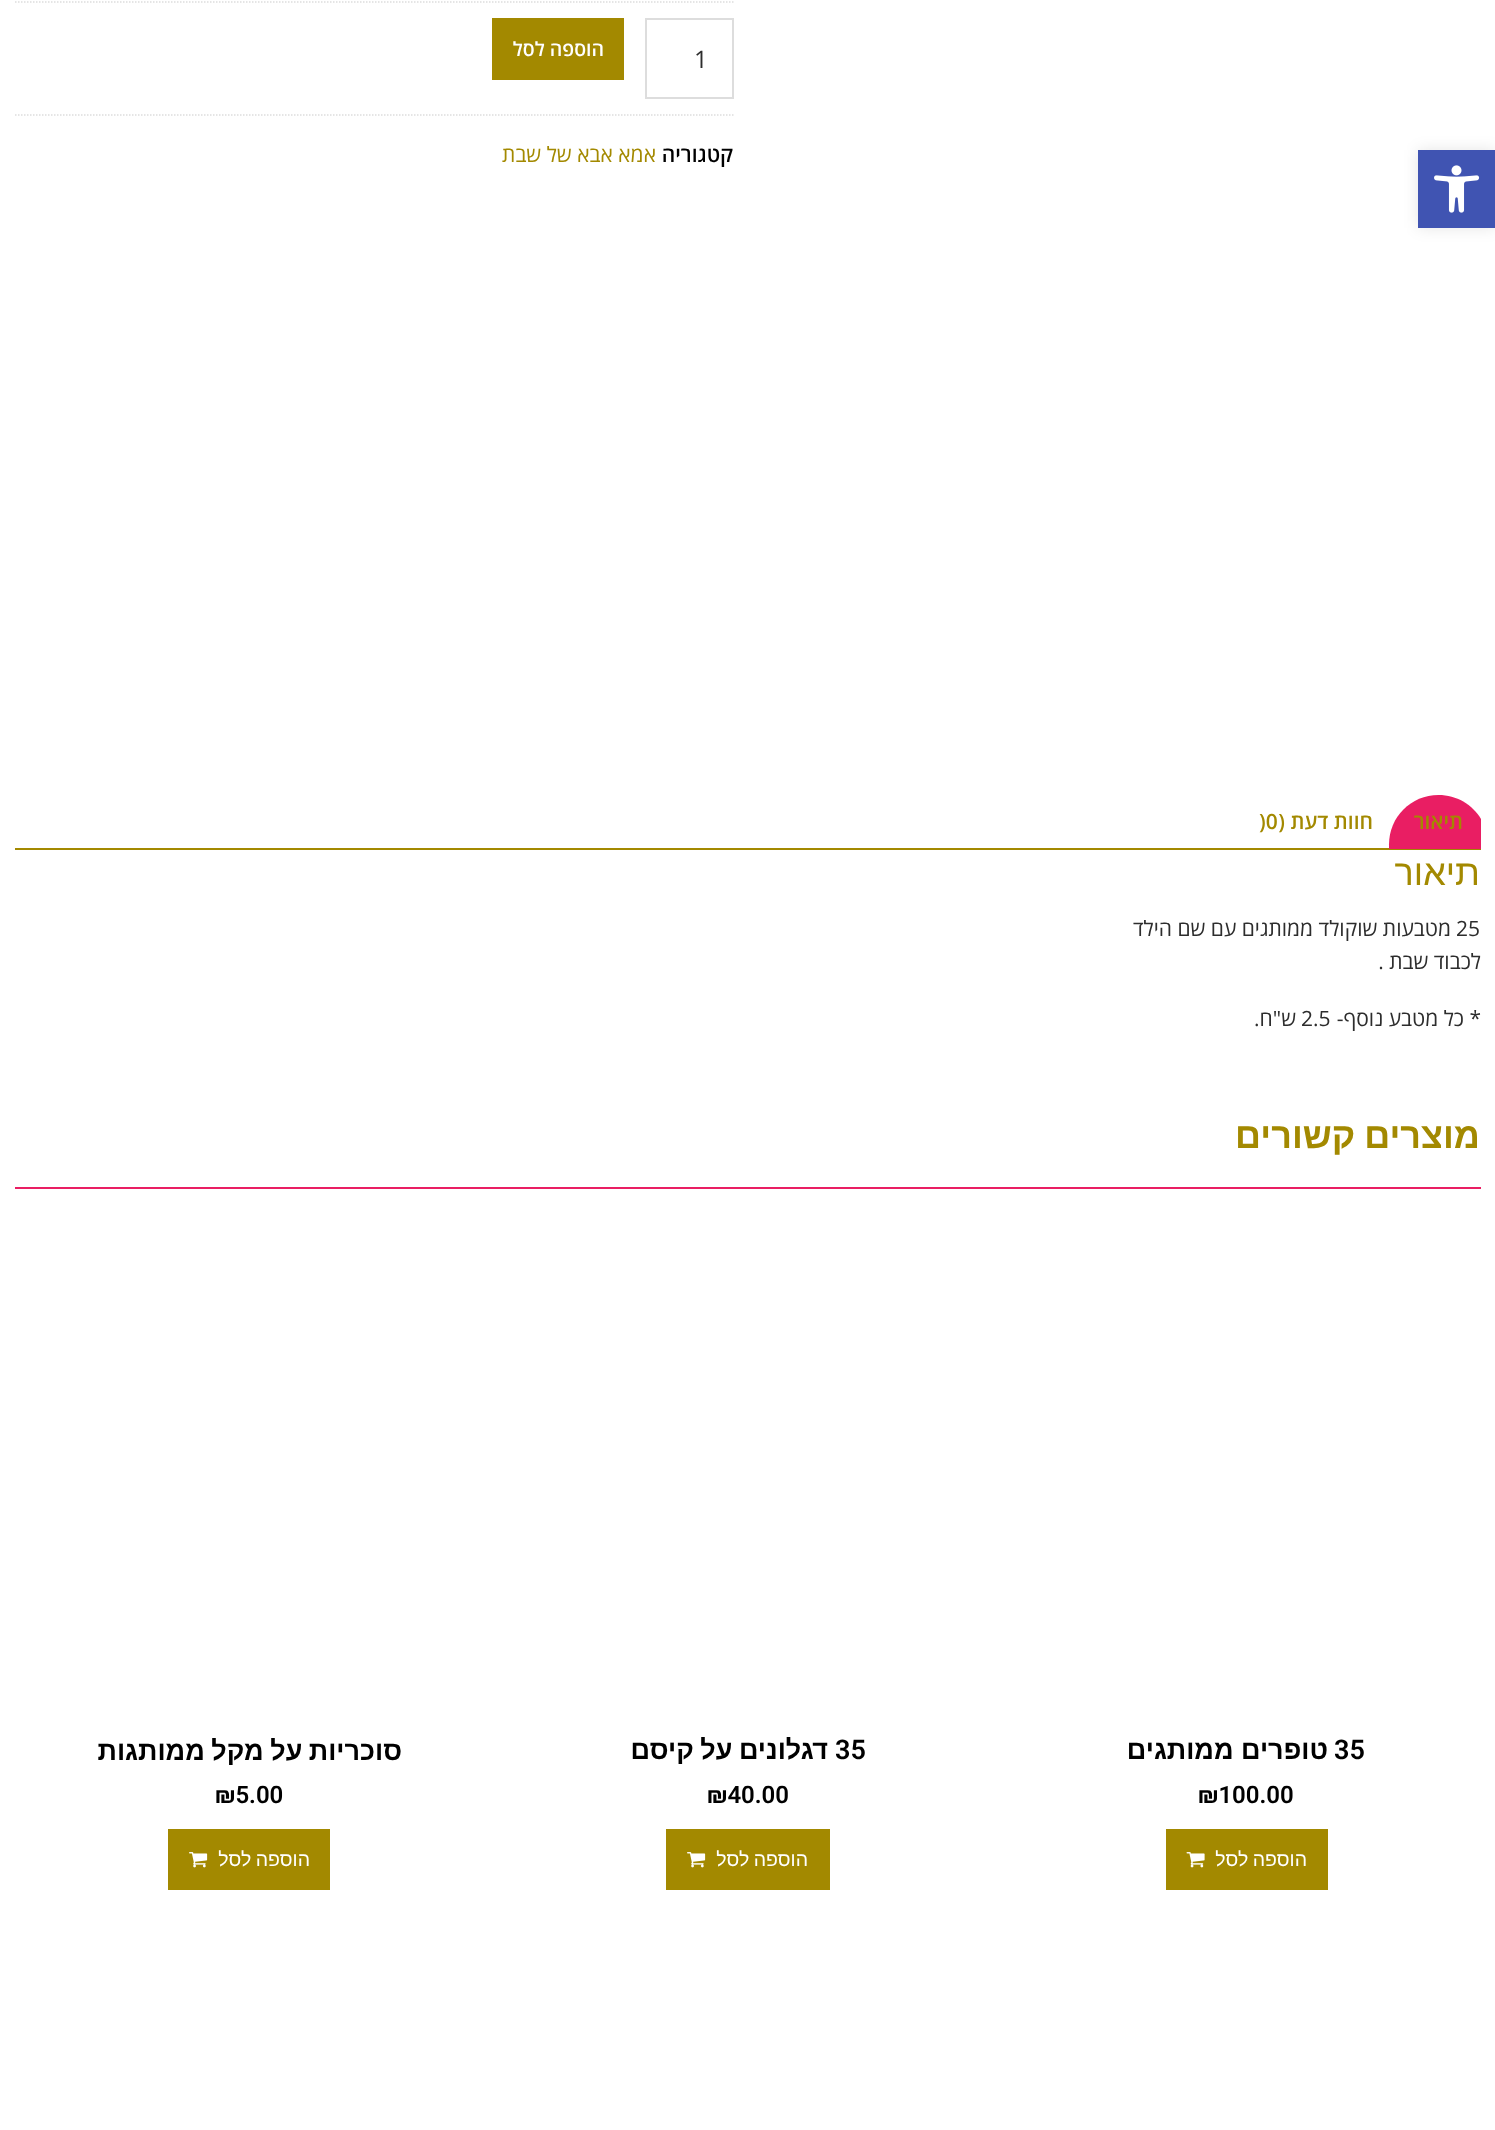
<svg xmlns="http://www.w3.org/2000/svg" width="1495" height="2130">
<style>
.a{font:24px Open Sans;fill:#2d2d2d}
.b{font:600 19.5px Open Sans;direction:rtl;fill:#fff}
.c{font:600 21px Open Sans;direction:rtl;fill:#000}
.d{font:21px Open Sans;direction:rtl;fill:#a38900}
.e{font:600 21px Open Sans;direction:rtl;fill:#a38900}
.f{font:600 21px Open Sans;fill:#a38900}
.g{font:36px Liberation Sans;direction:rtl;fill:#a38900}
.h{font:21px Open Sans;fill:#2d2d2d}
.i{font:21px Open Sans;direction:rtl;fill:#2d2d2d}
.j{font:bold 36px Liberation Sans;direction:rtl;fill:#a38900}
.k{font:600 27px Roboto;fill:#000}
.l{font:bold 27px Liberation Sans;direction:rtl;fill:#000}
.m{font:600 24px Roboto;fill:#000}
.n{font:19.5px Liberation Sans;direction:rtl;fill:#fff}
</style>
<defs>
<clipPath id="clip1"><path d="M15 795h1466v54H15z"/></clipPath>
</defs>
<rect width="100%" height="100%" fill="#fff"/>
<path fill="none" stroke="#ddd" stroke-width="1.5" stroke-dasharray="1.5 1.5" d="M15 2h718.5"/>
<path fill="none" stroke="#ddd" stroke-width="1.5" stroke-dasharray="1.5 1.5" d="M15 115h718.5"/>
<path fill="none" stroke="#ddd" stroke-width="2" d="M646 19h87v79H646z"/>
<path fill="#a38900" d="M492 18h132v62H492z"/>
<path fill="#a38900" d="M15 848h1466v2H15z"/>
<g clip-path="url(#clip1)">
<path fill="#e91e63" d="M1438.5 795c27.5 0 49.5 22 49.5 49.5v4.5h-99v-4.5c0-27.5 22-49.5 49.5-49.5z"/>
</g>
<path fill="#e91e63" d="M15 1187h1466v2H15z"/>
<path fill="#a38900" d="M1166 1829h162v61H1166z"/>
<image href="1.png" x="1186" y="1852" width="19" height="16"/>
<path fill="#a38900" d="M666 1829h164v61H666z"/>
<image href="2.png" x="687" y="1852" width="19" height="16"/>
<path fill="#a38900" d="M168 1829h162v61H168z"/>
<image href="2.png" x="189" y="1852" width="19" height="16"/>
<path fill="#0000001a" filter="blur(7.5px)" d="M1418 150h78v78H1418z"/>
<path fill="#4054b2" d="M1418 150h77v78H1418z"/>
<image href="3.png" x="1434" y="165" width="46" height="48"/>
<text class="a" x="694" y="68">1</text>
<text class="b" x="604" y="56">הוספה לסל</text>
<text class="c" x="733" y="162">קטגוריה</text>
<text class="d" x="656" y="162">אמא אבא של שבת</text>
<text class="e" x="1463" y="829">תיאור</text>
<text class="e" x="1373" y="829">חוות דעת (</text>
<text class="f" x="1259" y="829">)0</text>
<text class="g" x="1480" y="885">תיאור</text>
<text class="h" x="1456" y="936">25</text>
<text class="i" x="1451" y="936">מטבעות שוקולד ממותגים עם שם הילד</text>
<text class="i" x="1481" y="969">לכבוד שבת .</text>
<text class="i" x="1481" y="1026">* כל מטבע נוסף-</text>
<text class="h" x="1301" y="1026">2.5</text>
<text class="i" x="1296" y="1026">ש"ח.</text>
<text class="j" x="1480" y="1148" word-spacing="-1">מוצרים קשורים</text>
<text class="k" x="1334" y="1759">35</text>
<text class="l" x="1328" y="1759">טופרים ממותגים</text>
<text class="m" x="1198" y="1803">₪100.00</text>
<text class="n" x="1307" y="1866" word-spacing="-1">הוספה לסל</text>
<text class="k" x="835" y="1759">35</text>
<text class="l" x="828" y="1759" word-spacing="-1">דגלונים על קיסם</text>
<text class="m" x="707" y="1803">₪40.00</text>
<text class="n" x="808" y="1866" word-spacing="-1">הוספה לסל</text>
<text class="l" x="402" y="1760" word-spacing="-1">סוכריות על מקל ממותגות</text>
<text class="m" x="215" y="1803">₪5.00</text>
<text class="n" x="310" y="1866" word-spacing="-1">הוספה לסל</text>
</svg>
